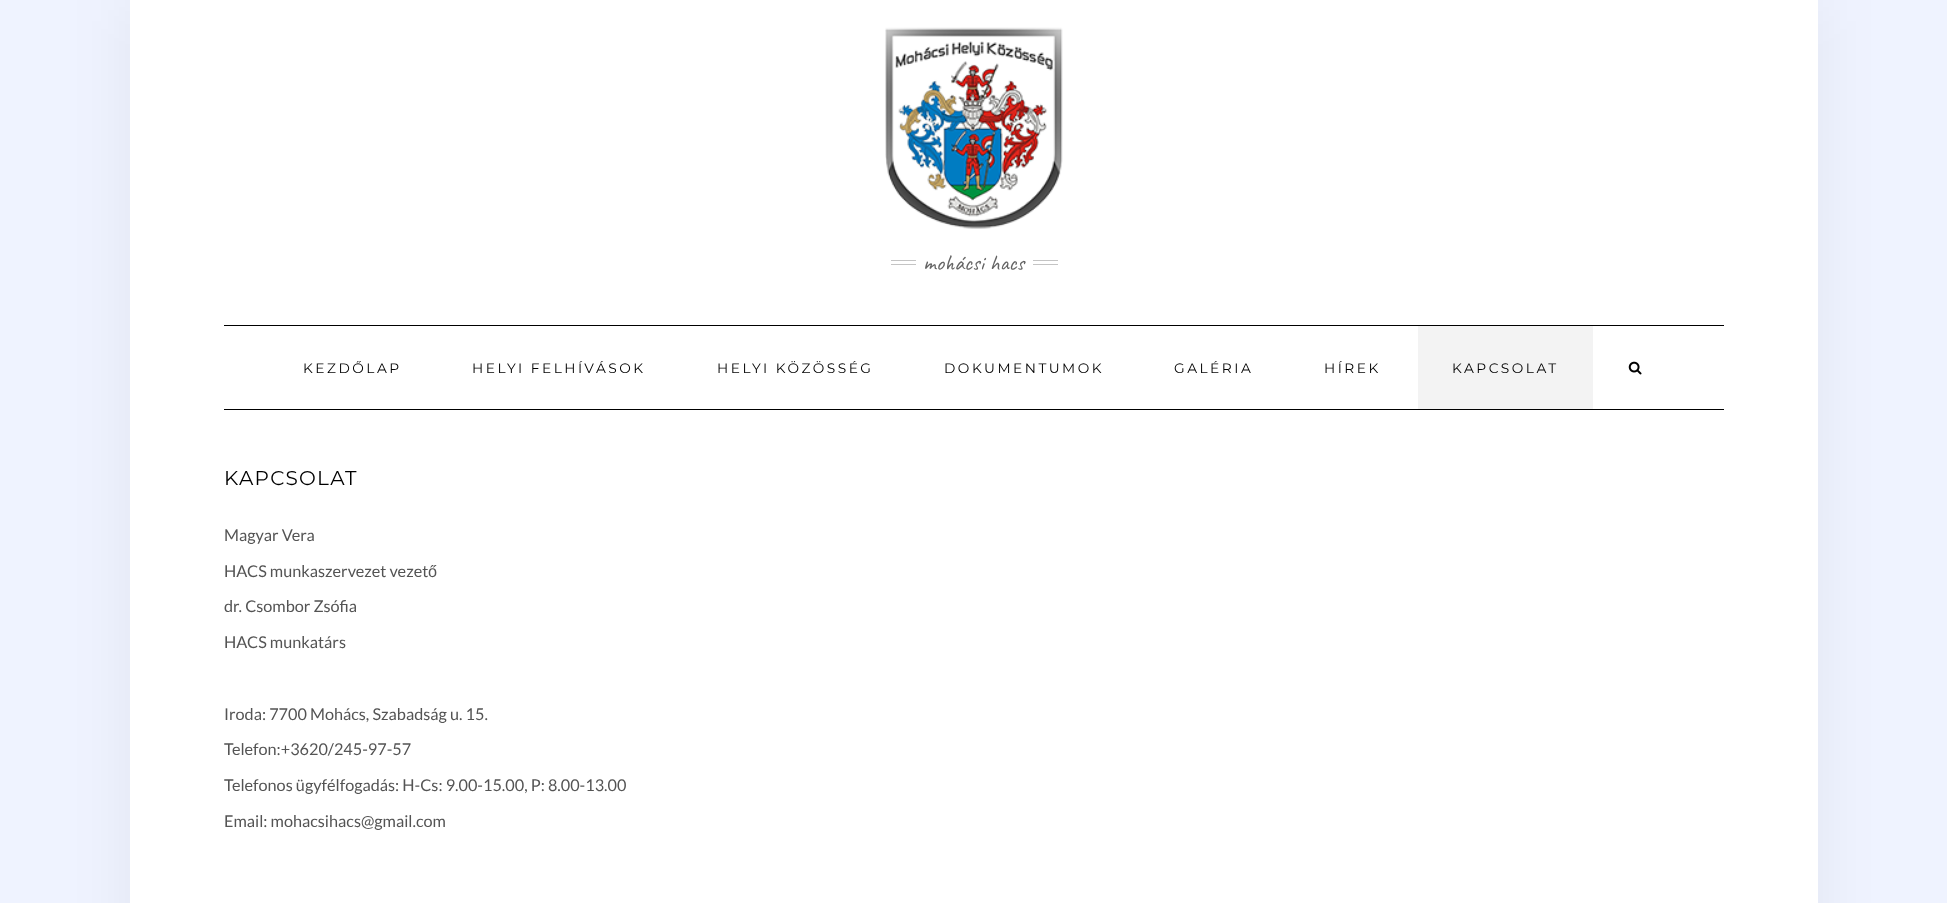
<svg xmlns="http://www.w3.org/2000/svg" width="1947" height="903">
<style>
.a{font:22.5px Caveat;fill:#646464}
.b{font:13.75px Montserrat;letter-spacing:2.5px;fill:#000}
.c{font:20px Montserrat;letter-spacing:1.25px;fill:#000}
.d{font:16.25px Lato;fill:#545454}
.e{font:16.25px Liberation Sans;fill:#545454}
</style>
<rect width="100%" height="100%" fill="#eff3ff"/>
<path fill="#0000000f" filter="blur(31px)" d="M130 0h1688v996H130z"/>
<path fill="#fff" d="M130 0h1688v903H130z"/>
<image href="1.png" x="885" y="27" width="178" height="202"/>
<path fill="#c4c4c4" d="M891 260h25v1H891z"/>
<path fill="#c4c4c4" d="M891 264h25v1H891z"/>
<path fill="#c4c4c4" d="M1033 260h25v1H1033z"/>
<path fill="#c4c4c4" d="M1033 264h25v1H1033z"/>
<path fill="#000" d="M224 325h1500v1H224z"/>
<path fill="#000" d="M224 409h1500v1H224z"/>
<path fill="#f3f3f3" d="M1418 326h175v83H1418z"/>
<image href="2.png" x="1628" y="361" width="14" height="14"/>
<text class="a" x="923" y="270">mohácsi hacs</text>
<text class="b" x="303" y="373">KEZDŐLAP</text>
<text class="b" x="472" y="373">HELYI FELHÍVÁSOK</text>
<text class="b" x="717" y="373">HELYI KÖZÖSSÉG</text>
<text class="b" x="944" y="373">DOKUMENTUMOK</text>
<text class="b" x="1174" y="373">GALÉRIA</text>
<text class="b" x="1324" y="373">HÍREK</text>
<text class="b" x="1452" y="373">KAPCSOLAT</text>
<text class="c" x="224" y="485">KAPCSOLAT</text>
<text class="d" x="224" y="541">Magyar Vera</text>
<text class="d" x="224" y="577">HACS munkaszervezet vezet</text>
<text class="e" x="428" y="577">ő</text>
<text class="d" x="224" y="612">dr. Csombor Zsófia</text>
<text class="d" x="224" y="648">HACS munkatárs</text>
<text class="d" x="224" y="720">Iroda: 7700 Mohács, Szabadság u. 15.</text>
<text class="d" x="224" y="755">Telefon:+3620/245-97-57</text>
<text class="d" x="224" y="791">Telefonos ügyfélfogadás: H-Cs: 9.00-15.00, P: 8.00-13.00</text>
<text class="d" x="224" y="827">Email: mohacsihacs@gmail.com</text>
</svg>
